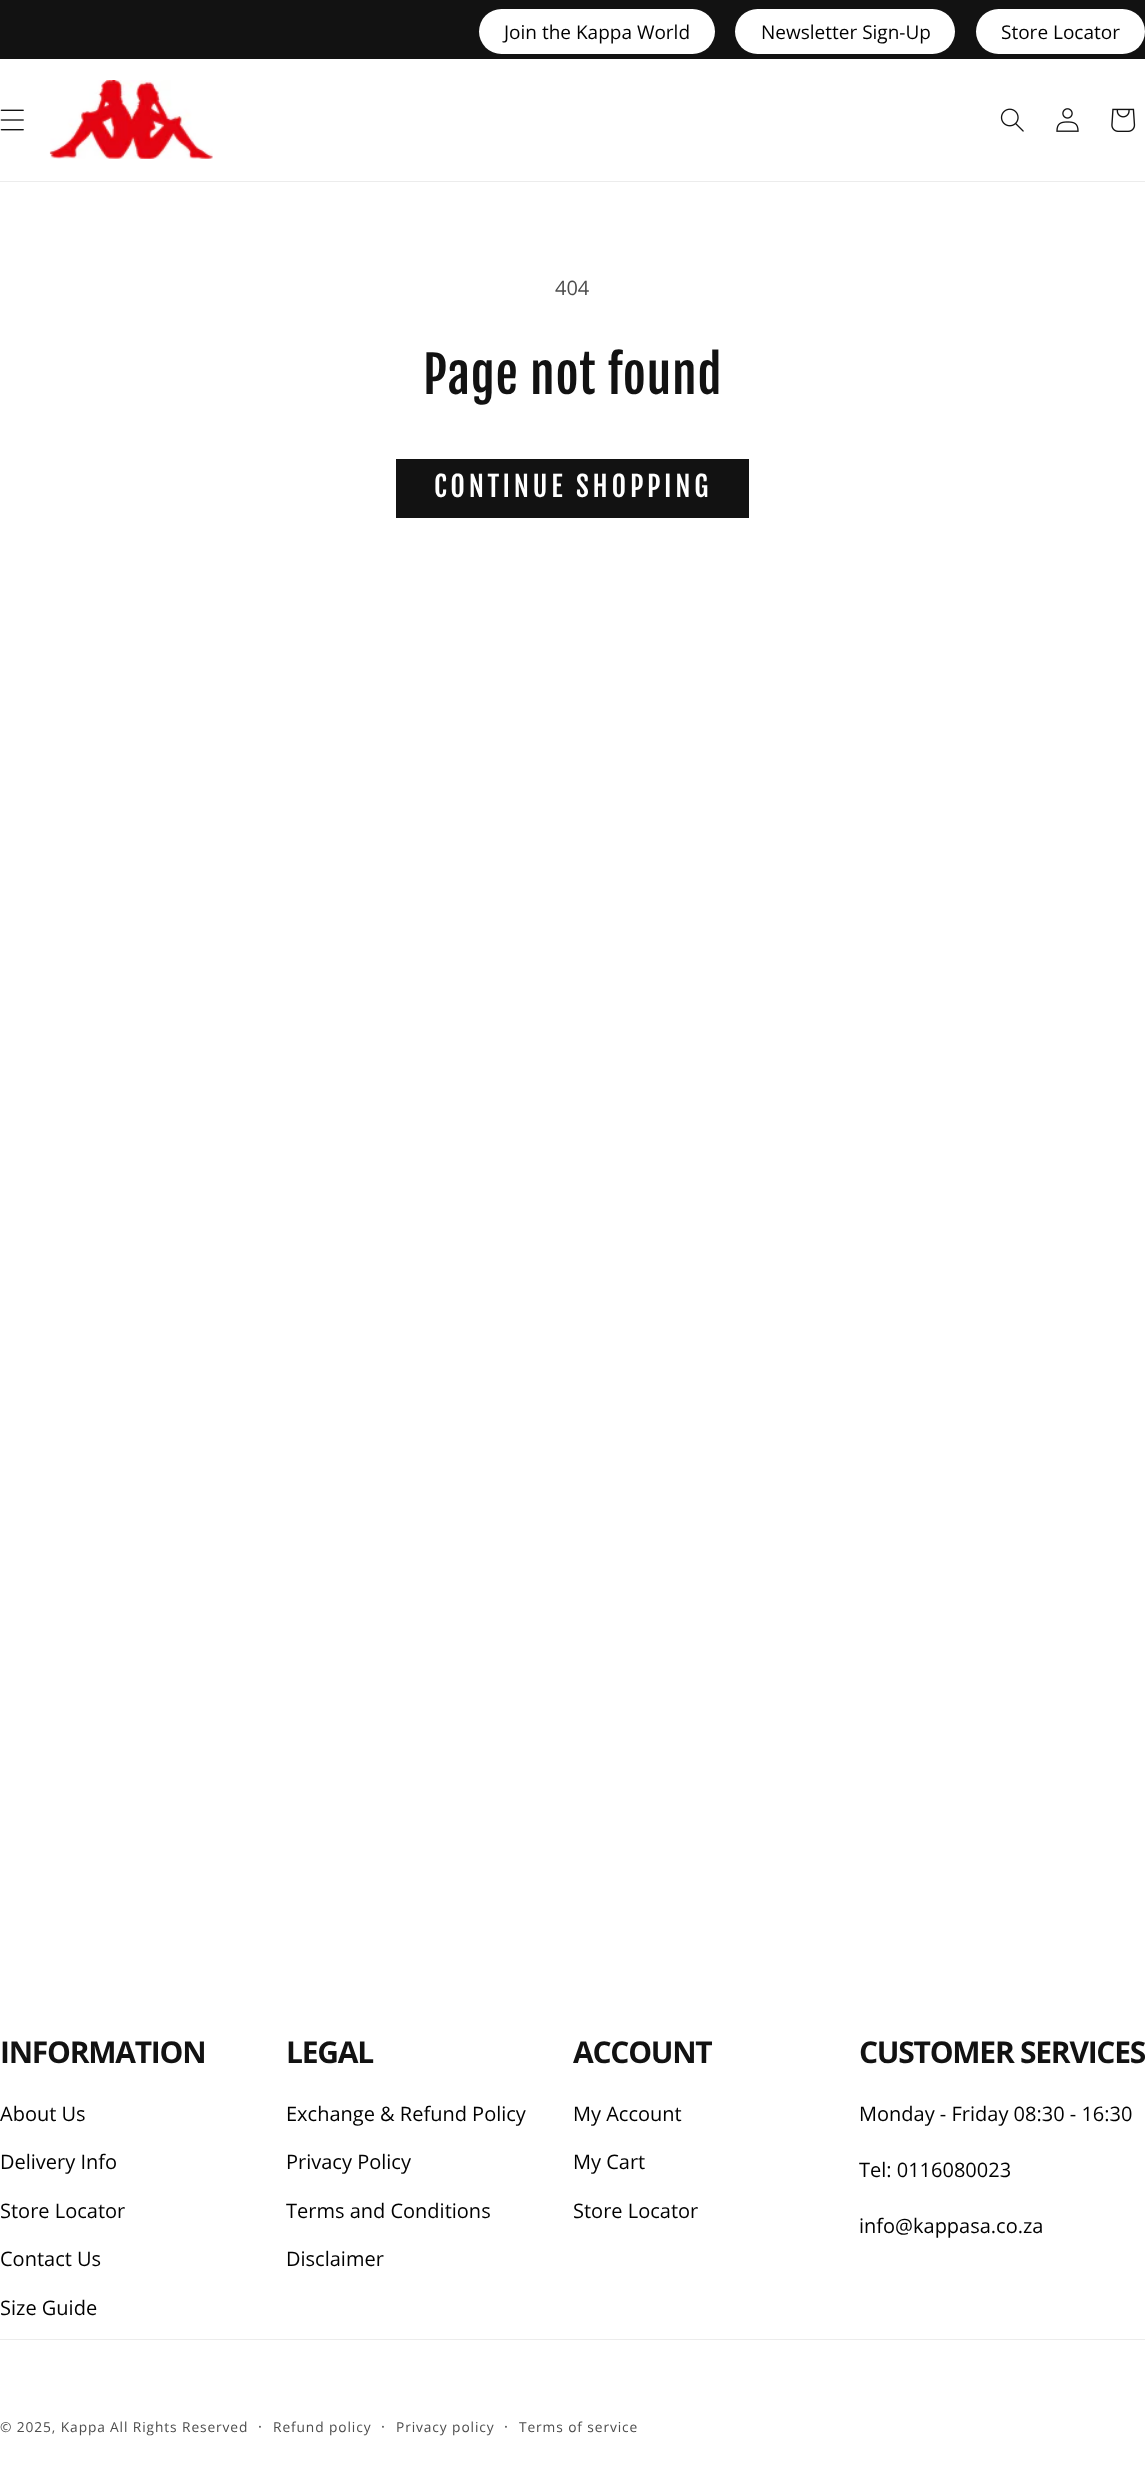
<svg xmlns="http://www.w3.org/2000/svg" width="1145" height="2484">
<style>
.a{font:19px Open Sans;fill:#000}
.b{font:20px Open Sans;fill:#4d4d4d}
.c{font:50px Fjalla One;letter-spacing:0.75px;fill:#121212}
.d{font:28px Fjalla One;letter-spacing:3.75px;fill:#fff}
.e{font:bold 30px Open Sans;letter-spacing:-1.25px;fill:#121212}
.f{font:20px Open Sans;fill:#000}
.g{font:13.75px Open Sans;letter-spacing:0.9px;fill:#4d4d4d}
.h{font:15px Open Sans;letter-spacing:0.9px;fill:#4d4d4d}
</style>
<rect width="100%" height="100%" fill="#fff"/>
<path fill="#121212" d="M0 0h1145v59H0z"/>
<rect fill="#fff" x="479" y="9" width="236" height="45" rx="22.5"/>
<rect fill="#fff" x="735" y="9" width="220" height="45" rx="22.5"/>
<rect fill="#fff" x="976" y="9" width="169" height="45" rx="22.5"/>
<path fill="#ececec" d="M0 181h1145v1H0z"/>
<image href="1.png" x="0" y="109" width="24" height="22"/>
<image href="2.png" x="49" y="80" width="164" height="79"/>
<image href="3.png" x="1000" y="108" width="24" height="24"/>
<image href="4.png" x="1056" y="108" width="23" height="24"/>
<image href="5.png" x="1111" y="108" width="25" height="24"/>
<path fill="#121212" d="M396 459h353v59H396z"/>
<path fill="#ececec" d="M0 2339h1145v1H0z"/>
<text class="a" x="504" y="39">Join the Kappa World</text>
<text class="a" x="761" y="39">Newsletter Sign-Up</text>
<text class="a" x="1001" y="39">Store Locator</text>
<text class="b" x="555" y="295">404</text>
<text class="c" x="423" y="394">Page not found</text>
<text class="d" x="434" y="497">CONTINUE SHOPPING</text>
<text class="e" x="0" y="2063">INFORMATION</text>
<text class="f" x="0" y="2121">About Us</text>
<text class="f" x="0" y="2169">Delivery Info</text>
<text class="f" x="0" y="2218">Store Locator</text>
<text class="f" x="0" y="2266">Contact Us</text>
<text class="f" x="0" y="2315">Size Guide</text>
<text class="e" x="286" y="2063">LEGAL</text>
<text class="f" x="286" y="2121">Exchange &amp; Refund Policy</text>
<text class="f" x="286" y="2169">Privacy Policy</text>
<text class="f" x="286" y="2218">Terms and Conditions</text>
<text class="f" x="286" y="2266">Disclaimer</text>
<text class="e" x="573" y="2063">ACCOUNT</text>
<text class="f" x="573" y="2121">My Account</text>
<text class="f" x="573" y="2169">My Cart</text>
<text class="f" x="573" y="2218">Store Locator</text>
<text class="e" x="859" y="2063">CUSTOMER SERVICES</text>
<text class="f" x="859" y="2121">Monday - Friday 08:30 - 16:30</text>
<text class="f" x="859" y="2177">Tel: 0116080023</text>
<text class="f" x="859" y="2233">info@kappasa.co.za</text>
<text class="g" x="0" y="2432">© 2025, Kappa</text>
<text class="g" x="110" y="2432">All Rights Reserved</text>
<text class="h" x="258" y="2432">·</text>
<text class="g" x="273" y="2432">Refund policy</text>
<text class="h" x="381" y="2432">·</text>
<text class="g" x="396" y="2432">Privacy policy</text>
<text class="h" x="504" y="2432">·</text>
<text class="g" x="519" y="2432">Terms of service</text>
</svg>
